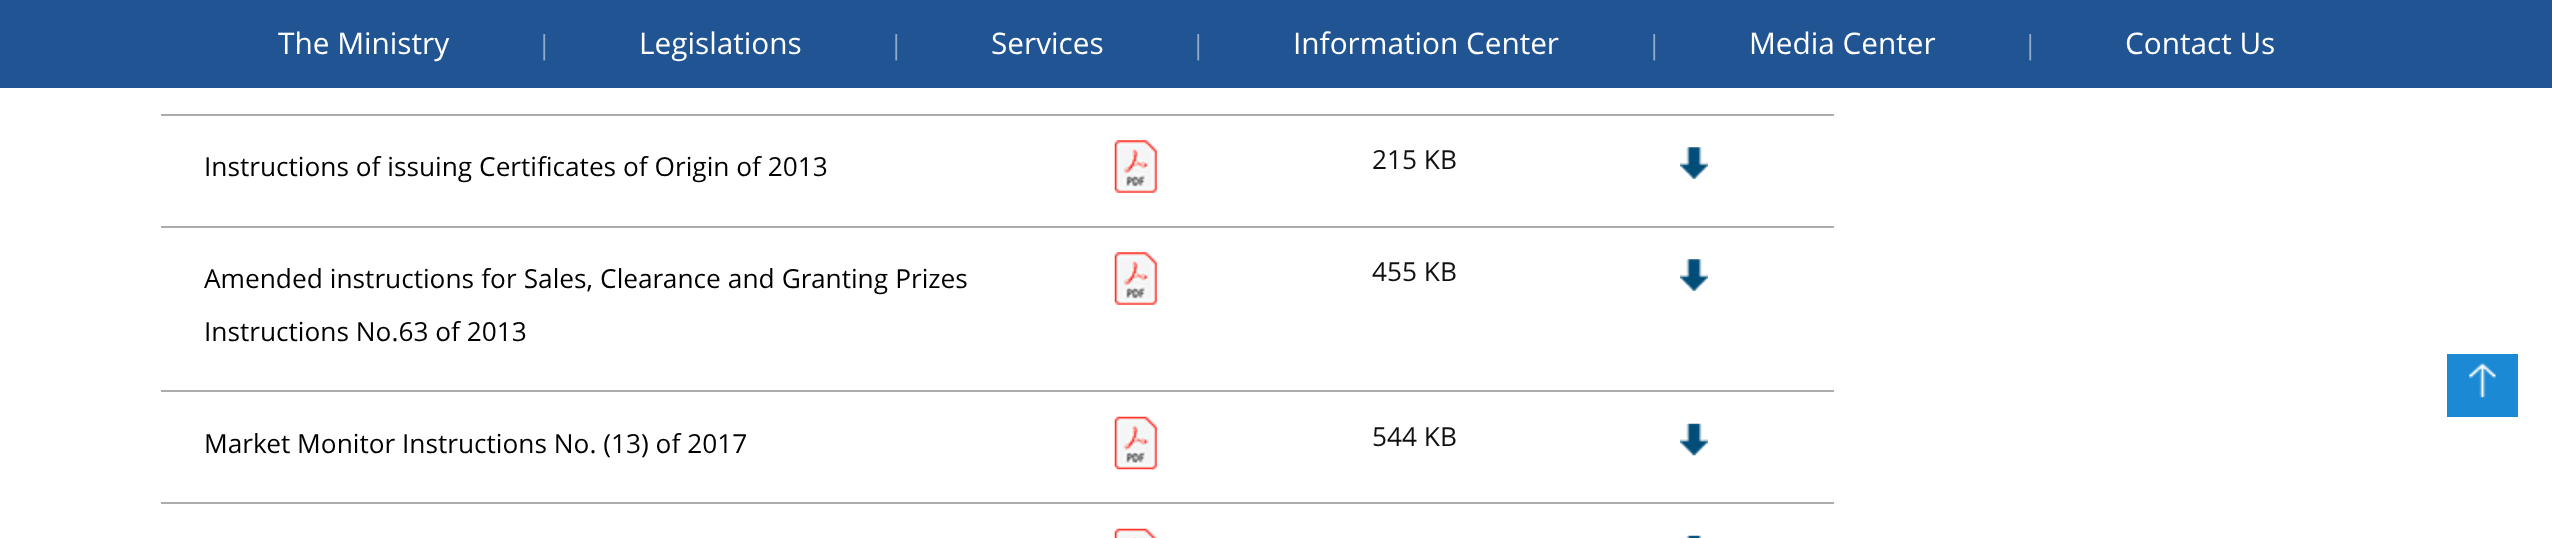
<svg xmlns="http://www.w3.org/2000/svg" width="2552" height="538">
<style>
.a{font:29.75px Open Sans;fill:#fff}
.b{font:26.25px Open Sans;fill:#90aac9}
.c{font:26.25px Open Sans;fill:#000}
.d{font:26.25px Open Sans;fill:#101010}
</style>
<rect width="100%" height="100%" fill="#fff"/>
<path fill="#215493" d="M0 0h2552v88H0z"/>
<path fill="#acacac" d="M161 114h1673v2H161z"/>
<path fill="#acacac" d="M161 226h1673v2H161z"/>
<image href="1.png" x="1114" y="140" width="43" height="53"/>
<image href="2.png" x="1680" y="147" width="28" height="32"/>
<path fill="#acacac" d="M161 390h1673v2H161z"/>
<image href="1.png" x="1114" y="252" width="43" height="53"/>
<image href="2.png" x="1680" y="259" width="28" height="32"/>
<path fill="#acacac" d="M161 502h1673v2H161z"/>
<image href="3.png" x="1114" y="416" width="43" height="54"/>
<image href="4.png" x="1680" y="423" width="28" height="33"/>
<image href="5.png" x="1114" y="528" width="43" height="10"/>
<image href="6.png" x="1686" y="535" width="16" height="3"/>
<path fill="#1b89d4" d="M2447 354h71v63H2447z"/>
<image href="7.png" x="2469" y="363" width="27" height="35"/>
<text class="a" x="278" y="54">The Ministry</text>
<text class="b" x="537" y="54">|</text>
<text class="a" x="639" y="54">Legislations</text>
<text class="b" x="889" y="54">|</text>
<text class="a" x="991" y="54">Services</text>
<text class="b" x="1191" y="54">|</text>
<text class="a" x="1293" y="54">Information Center</text>
<text class="b" x="1647" y="54">|</text>
<text class="a" x="1749" y="54">Media Center</text>
<text class="b" x="2023" y="54">|</text>
<text class="a" x="2125" y="54">Contact Us</text>
<text class="c" x="204" y="176">Instructions of issuing Certificates of Origin of 2013</text>
<text class="d" x="1372" y="169">215 KB</text>
<text class="c" x="204" y="288" word-spacing="0.25">Amended instructions for Sales, Clearance and Granting Prizes</text>
<text class="c" x="204" y="341">Instructions No.63 of 2013</text>
<text class="d" x="1372" y="281">455 KB</text>
<text class="c" x="204" y="453">Market Monitor Instructions No. (13) of 2017</text>
<text class="d" x="1372" y="446">544 KB</text>
</svg>
